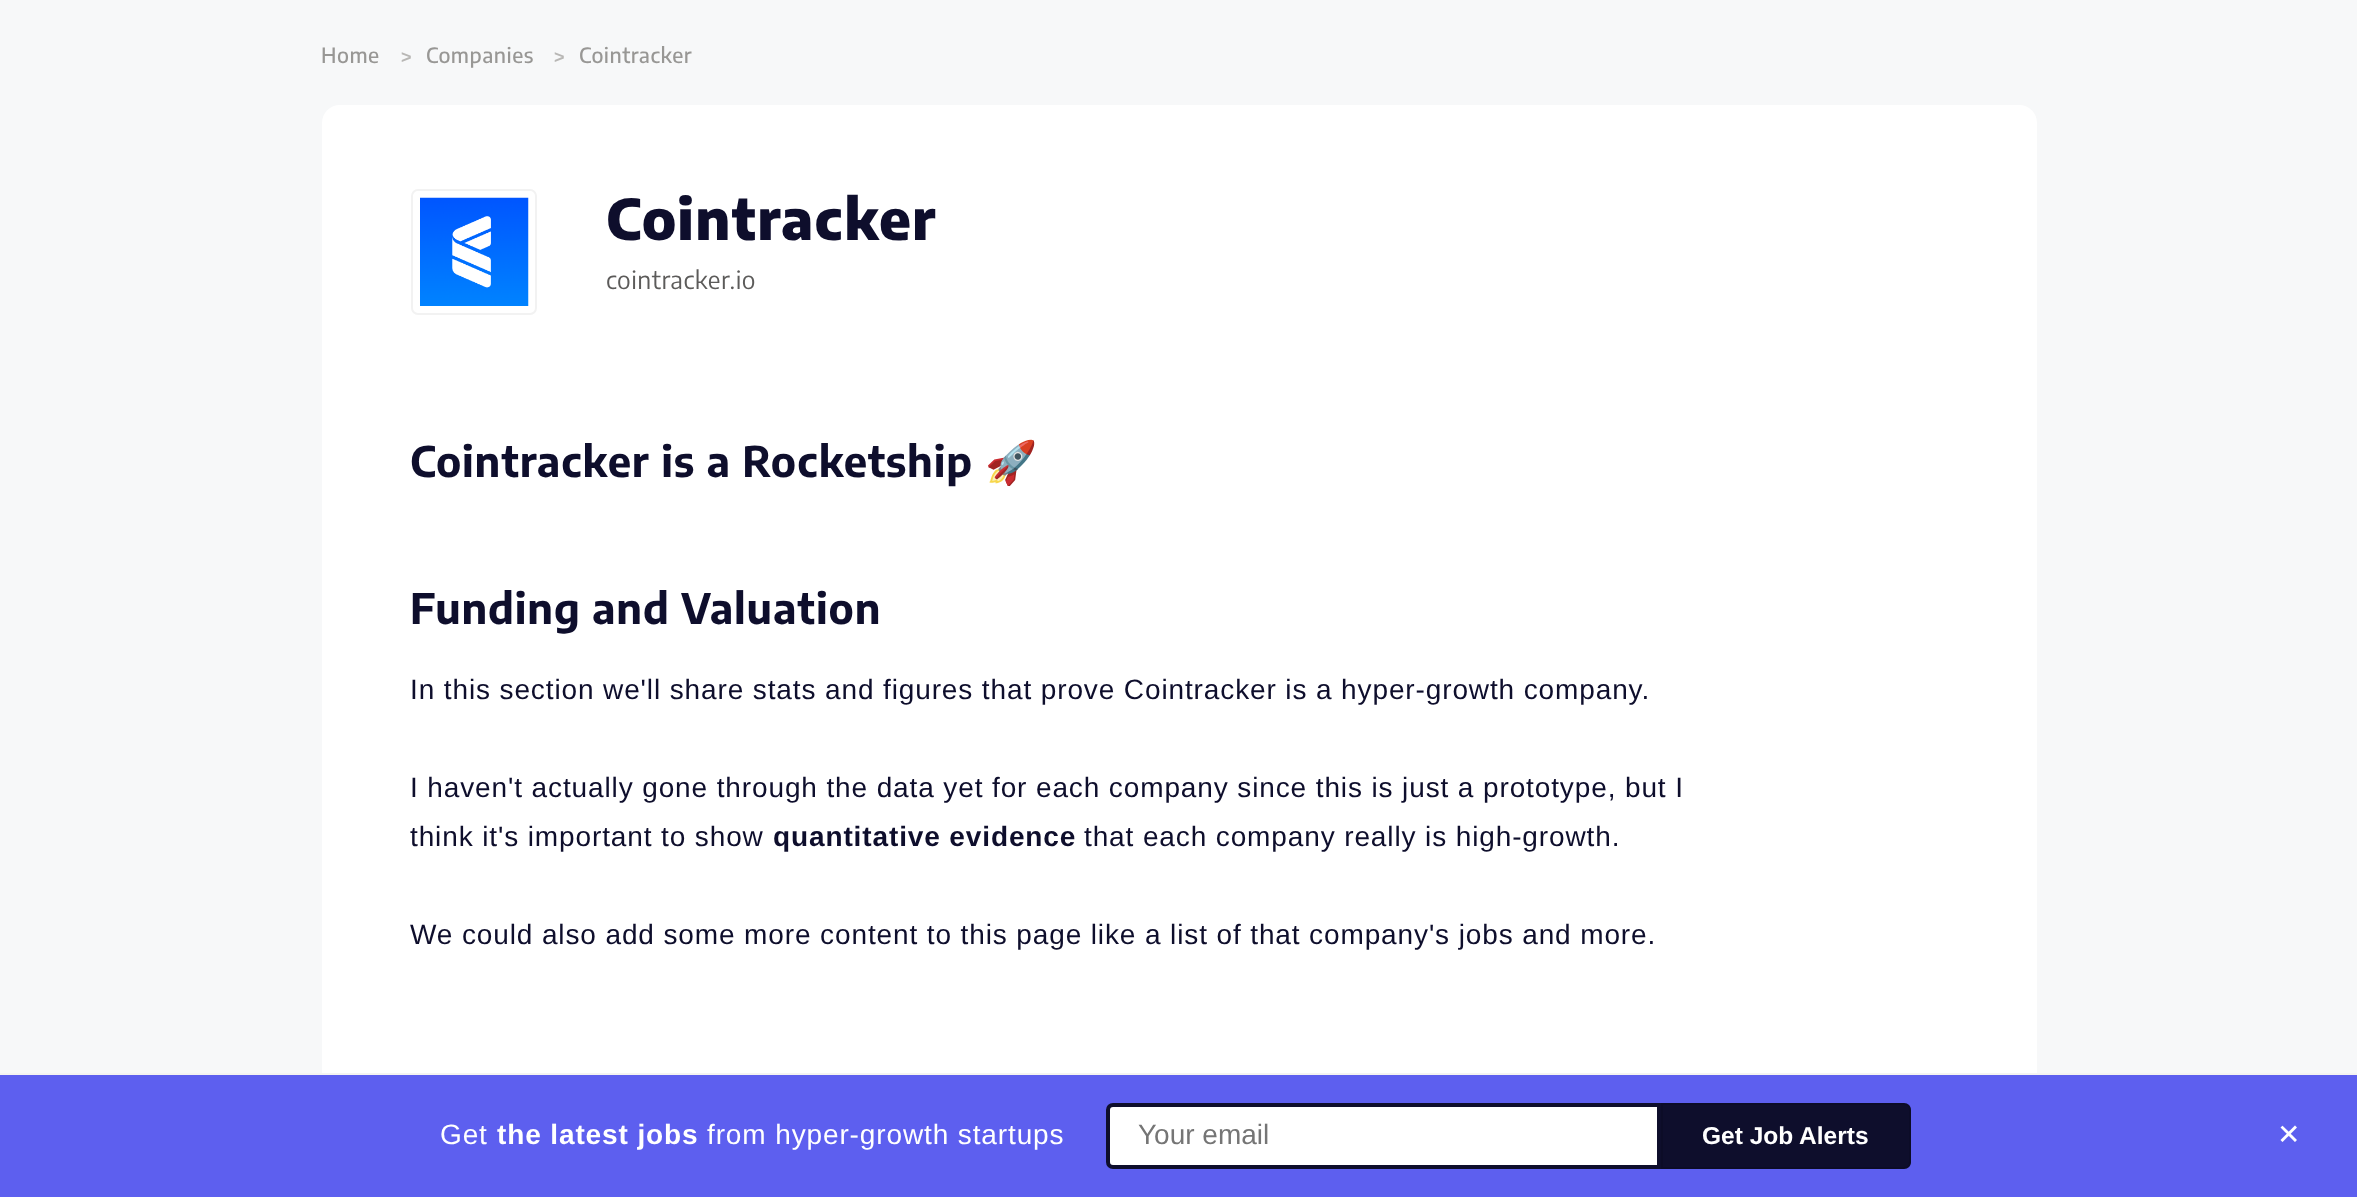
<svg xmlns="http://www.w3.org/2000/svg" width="2357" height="1197">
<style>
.a{font:500 21px Encode Sans Condensed;letter-spacing:0.5px;fill:#989795}
.b{font:bold 18px Liberation Sans;letter-spacing:0.88px;fill:#b8b7b5}
.c{font:800 56px Encode Sans Condensed;letter-spacing:1.25px;fill:#0e0e2c}
.d{font:24.5px Encode Sans Condensed;letter-spacing:0.5px;fill:#5c5b5a}
.e{font:bold 42px Encode Sans Condensed;letter-spacing:0.88px;fill:#0e0e2c}
.f{font:bold 42px Noto Color Emoji;letter-spacing:0.88px;fill:#0e0e2c}
.g{font:28px Liberation Sans;letter-spacing:0.88px;fill:#0e0e2c}
.h{font:bold 28px Liberation Sans;letter-spacing:0.88px;fill:#0e0e2c}
.i{font:28px Liberation Sans;letter-spacing:0.88px;fill:#fff}
.j{font:bold 28px Liberation Sans;letter-spacing:0.88px;fill:#fff}
.k{font:28px Liberation Sans;fill:#757575}
.l{font:bold 24.5px Liberation Sans;fill:#fff}
.m{font:28px DejaVu Sans;letter-spacing:0.88px;fill:#fff}
</style>
<rect width="100%" height="100%" fill="#f7f8f9"/>
<rect fill="#fff" x="322" y="105" width="1715" height="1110" rx="18"/>
<rect fill="none" stroke="#f2f2f2" stroke-width="2" x="412" y="190" width="124" height="124" rx="6"/>
<image href="1.png" x="420" y="197" width="109" height="109"/>
<path fill="#5d5fef" d="M0 1075h2357v122H0z"/>
<path fill="#f4f3f1" d="M0 1073h2357v2H0z"/>
<path fill="#fff" stroke="#0e0e2c" stroke-width="4" d="M1113 1105h546v62h-546c-3 0-5-2-5-5v-52c0-3 2-5 5-5z"/>
<path fill="#0e0e2c" d="M1661 1103h243c4 0 7 3 7 7v52c0 4-3 7-7 7h-243z"/>
<path fill="none" stroke="#0000001a" stroke-width="2" d="M1662 1104h242c3.5 0 6 2.5 6 6v52c0 3.5-2.5 6-6 6h-242z"/>
<text class="a" x="321" y="63">Home</text>
<text class="b" x="401" y="63">&gt;</text>
<text class="a" x="426" y="63">Companies</text>
<text class="b" x="554" y="63">&gt;</text>
<text class="a" x="579" y="63">Cointracker</text>
<text class="c" x="606" y="240">Cointracker</text>
<text class="d" x="606" y="289">cointracker.io</text>
<text class="e" x="410" y="477">Cointracker is a Rocketship</text>
<text class="f" x="985" y="477">🚀</text>
<text class="e" x="410" y="624">Funding and Valuation</text>
<text class="g" x="410" y="699">In this section we'll share stats and figures that prove Cointracker is a hyper-growth company.</text>
<text class="g" x="410" y="797">I haven't actually gone through the data yet for each company since this is just a prototype, but I</text>
<text class="g" x="410" y="846">think it's important to show</text>
<text class="h" x="773" y="846">quantitative evidence</text>
<text class="g" x="1084" y="846">that each company really is high-growth.</text>
<text class="g" x="410" y="944">We could also add some more content to this page like a list of that company's jobs and more.</text>
<text class="i" x="440" y="1144">Get</text>
<text class="j" x="497" y="1144">the latest jobs</text>
<text class="i" x="707" y="1144">from hyper-growth startups</text>
<text class="k" x="1138" y="1144">Your email</text>
<text class="l" x="1702" y="1144">Get Job Alerts</text>
<text class="m" x="2277" y="1144">✕</text>
</svg>
